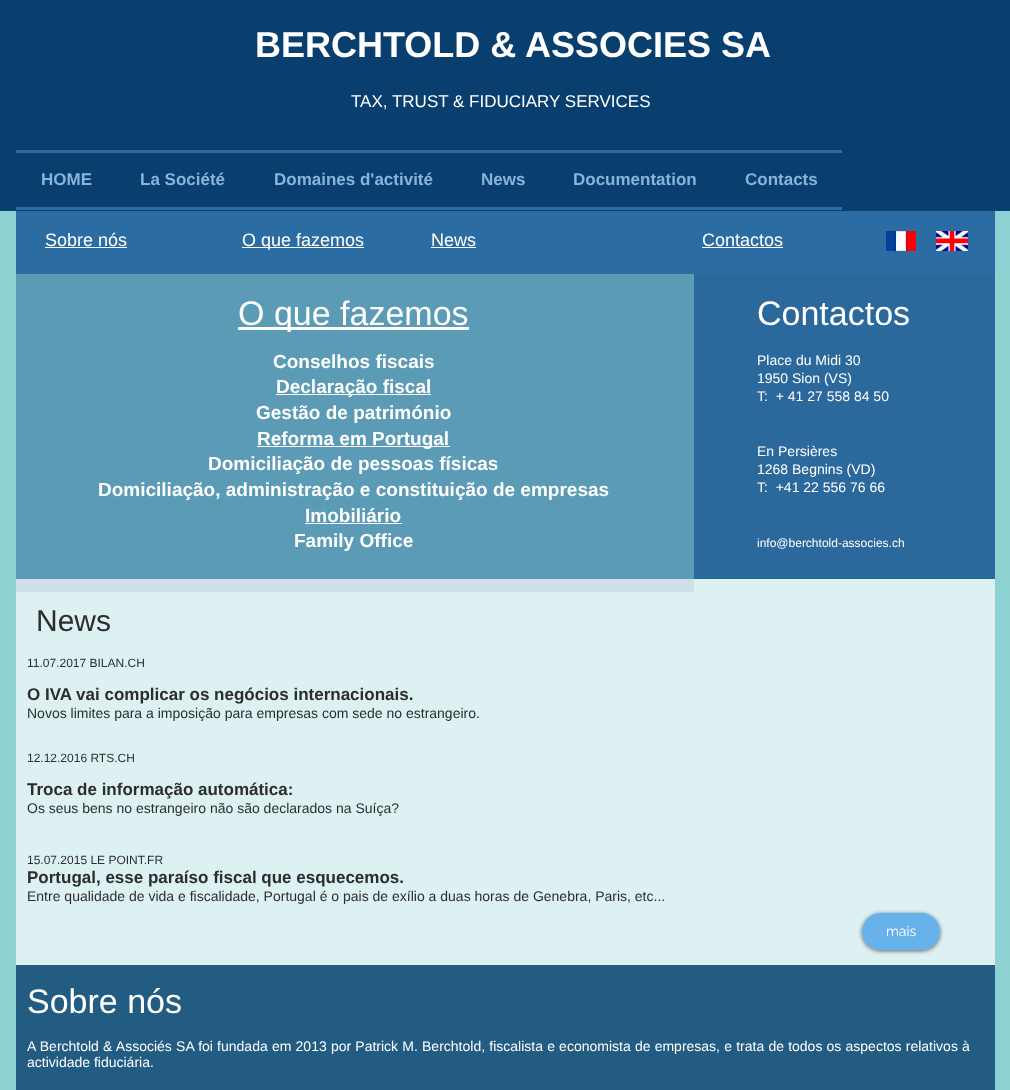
<svg xmlns="http://www.w3.org/2000/svg" width="1010" height="1090">
<style>
.a{font:bold 36px Liberation Sans;fill:#fff}
.b{font:17px Liberation Sans;fill:#fff}
.c{font:bold 17px Liberation Sans;fill:#86b4db}
.d{font:18px Liberation Sans;fill:#fff}
.e{font:34px Liberation Sans;fill:#fff}
.f{font:bold 19px Liberation Sans;fill:#fff}
.g{font:14px Liberation Sans;fill:#fff}
.h{font:12px Liberation Sans;fill:#fff}
.i{font:30px Liberation Sans;fill:#2d2d2d}
.j{font:12px Liberation Sans;fill:#2d2d2d}
.k{font:bold 17px Liberation Sans;fill:#2d2d2d}
.l{font:14px Liberation Sans;fill:#2d2d2d}
.m{font:14px Raleway;fill:#fff}
</style>
<defs>
<clipPath id="clip1"><path d="M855 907h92v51h-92zm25.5 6h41c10 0 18.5 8.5 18.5 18.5c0 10-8.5 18.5-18.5 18.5h-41c-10 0-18.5-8.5-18.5-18.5c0-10 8.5-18.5 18.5-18.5z" clip-rule="evenodd"/></clipPath>
</defs>
<rect width="100%" height="100%" fill="#8dd1d2"/>
<path fill="#093f6e" d="M0 0h1010v211H0z"/>
<path fill="#2b6ca3" d="M16 150h826v3H16z"/>
<path fill="#2b6ca3" d="M16 207h826v3H16z"/>
<path fill="#2b6ca3" d="M16 211h979v63H16z"/>
<path fill="#fff" d="M45 247h82v1H45z"/>
<path fill="#fff" d="M242 247h122v1H242z"/>
<path fill="#fff" d="M431 247h45v1H431z"/>
<path fill="#fff" d="M702 247h81v1H702z"/>
<image href="1.png" x="886" y="231" width="30" height="20"/>
<image href="2.png" x="936" y="231" width="32" height="20"/>
<path fill="#5b9bb6" d="M16 274h678v305H16z"/>
<path fill="#ddf1f2" d="M16 579h979v386H16z"/>
<path fill="#cee1e9" d="M16 579h678v13H16z"/>
<path fill="#fff" d="M238 327h231v3H238z"/>
<path fill="#fff" d="M276 394h155v1H276z"/>
<path fill="#fff" d="M257 446h193v1H257z"/>
<path fill="#fff" d="M305 523h97v1H305z"/>
<path fill="#2b689c" d="M694 274h301v305H694z"/>
<g clip-path="url(#clip1)">
<rect fill="#00000099" filter="blur(2px)" x="862" y="914" width="78" height="37" rx="18.5"/>
</g>
<rect fill="#3d9be9ba" x="862" y="913" width="78" height="37" rx="18.5"/>
<path fill="#235c82" d="M16 965h979v125H16z"/>
<text class="a" x="255" y="57">BERCHTOLD &amp; ASSOCIES SA</text>
<text class="b" x="351" y="107">TAX, TRUST &amp; FIDUCIARY SERVICES</text>
<text class="c" x="41" y="185">HOME</text>
<text class="c" x="140" y="185">La Société</text>
<text class="c" x="274" y="185">Domaines d'activité</text>
<text class="c" x="481" y="185">News</text>
<text class="c" x="573" y="185">Documentation</text>
<text class="c" x="745" y="185">Contacts</text>
<text class="d" x="45" y="246">Sobre nós</text>
<text class="d" x="242" y="246">O que fazemos</text>
<text class="d" x="431" y="246">News</text>
<text class="d" x="702" y="246">Contactos</text>
<text class="e" x="238" y="325">O que fazemos</text>
<text class="f" x="273" y="368">Conselhos fiscais</text>
<text class="f" x="276" y="393">Declaração fiscal</text>
<text class="f" x="256" y="419">Gestão de património</text>
<text class="f" x="257" y="445">Reforma em Portugal</text>
<text class="f" x="208" y="470">Domiciliação de pessoas físicas</text>
<text class="f" x="98" y="496">Domiciliação, administração e constituição de empresas</text>
<text class="f" x="305" y="522">Imobiliário</text>
<text class="f" x="294" y="547">Family Office</text>
<text class="e" x="757" y="325">Contactos</text>
<text class="g" x="757" y="365">Place du Midi 30</text>
<text class="g" x="757" y="383">1950 Sion (VS)</text>
<text class="g" xml:space="preserve" x="757" y="401">T:  + 41 27 558 84 50</text>
<text class="g" x="757" y="456">En Persières</text>
<text class="g" x="757" y="474">1268 Begnins (VD)</text>
<text class="g" xml:space="preserve" x="757" y="492">T:  +41 22 556 76 66</text>
<text class="h" x="757" y="547">info@berchtold-associes.ch</text>
<text class="i" x="36" y="631">News</text>
<text class="j" x="27" y="667">11.07.2017 BILAN.CH</text>
<text class="k" x="27" y="700">O IVA vai complicar os negócios internacionais.</text>
<text class="l" x="27" y="718">Novos limites para a imposição para empresas com sede no estrangeiro.</text>
<text class="j" x="27" y="762">12.12.2016 RTS.CH</text>
<text class="k" x="27" y="795">Troca de informação automática:</text>
<text class="l" x="27" y="813">Os seus bens no estrangeiro não são declarados na Suíça?</text>
<text class="j" x="27" y="864">15.07.2015 LE POINT.FR</text>
<text class="k" x="27" y="883">Portugal, esse paraíso fiscal que esquecemos.</text>
<text class="l" x="27" y="901">Entre qualidade de vida e fiscalidade, Portugal é o pais de exílio a duas horas de Genebra, Paris, etc...</text>
<text class="m" x="886" y="936">mais</text>
<text class="e" x="27" y="1013">Sobre nós</text>
<text class="g" x="27" y="1051" word-spacing="0.3">A Berchtold &amp; Associés SA foi fundada em 2013 por Patrick M. Berchtold, fiscalista e economista de empresas, e trata de todos os aspectos relativos à</text>
<text class="g" x="27" y="1067">actividade fiduciária.</text>
</svg>
